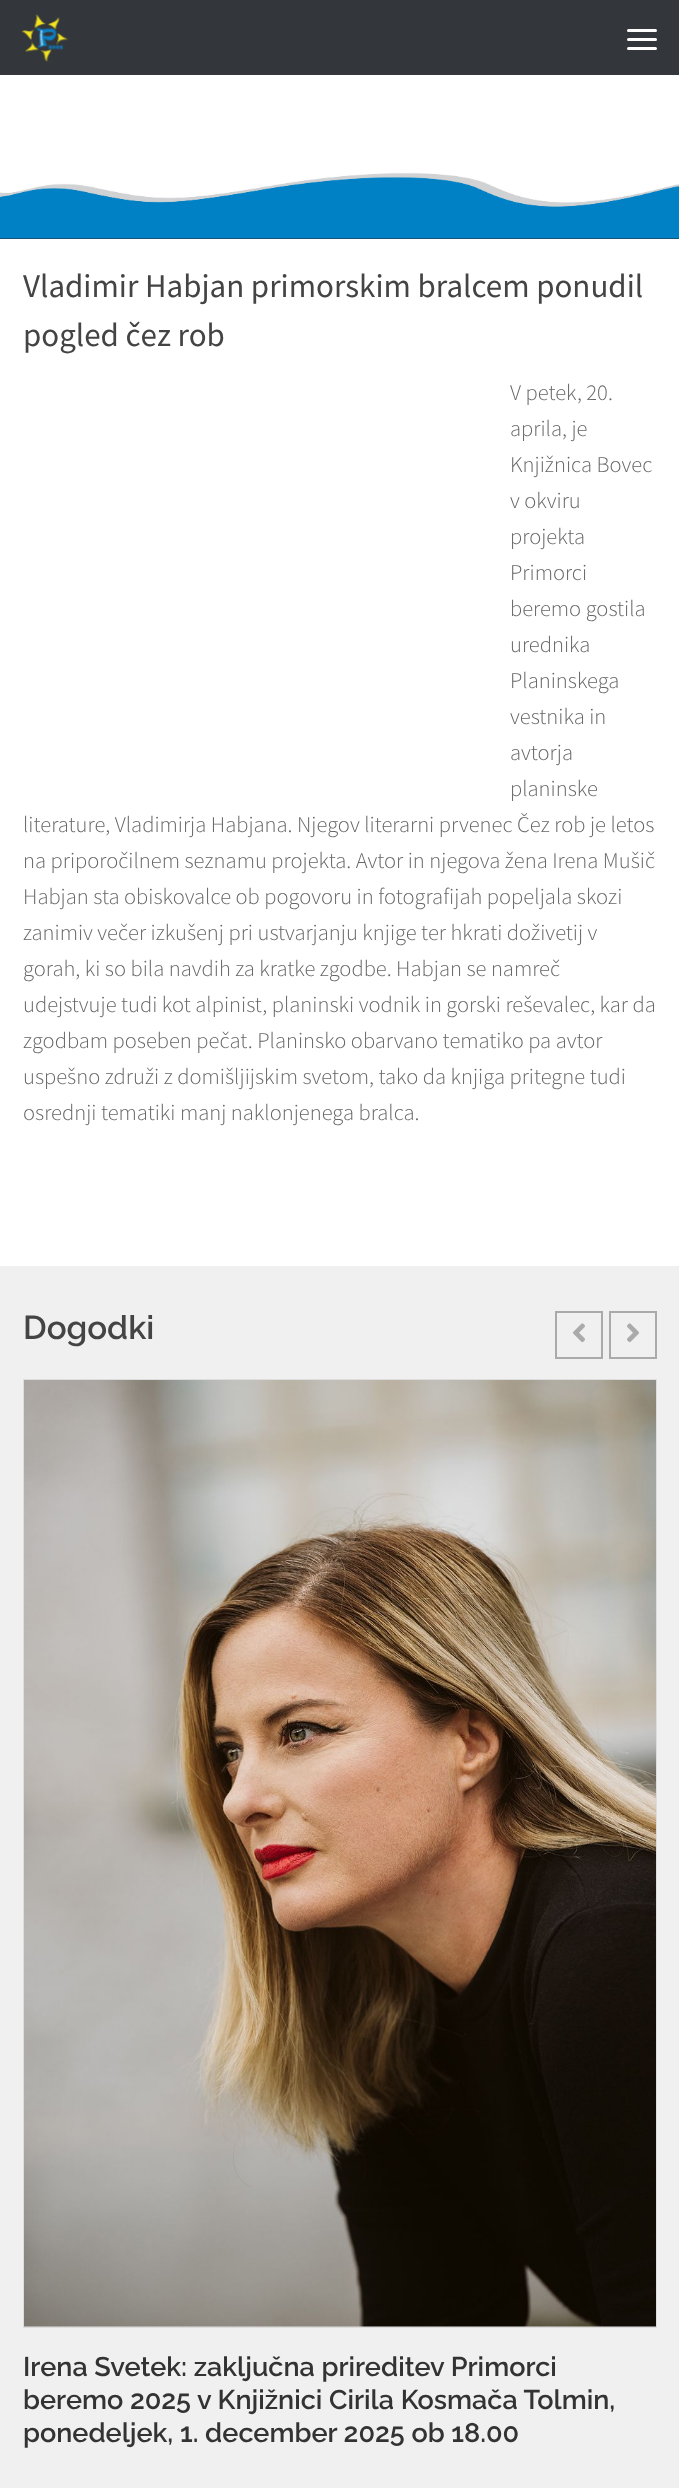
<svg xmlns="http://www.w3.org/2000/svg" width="679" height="2488">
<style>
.a{font:33px Source Sans Pro;fill:#444}
.b{font:300 22.5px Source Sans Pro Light;fill:#666}
.c{font:600 33px Raleway;fill:#444}
.d{font:600 27px Raleway;fill:#333}
</style>
<rect width="100%" height="100%" fill="#fff"/>
<path fill="#26272b" d="M0 238h679v1H0z"/>
<path fill="#33363b" d="M0 0h679v75H0z"/>
<image href="1.png" x="21" y="14" width="47" height="48"/>
<rect fill="#fff" x="627" y="29" width="30" height="3" rx="1.5"/>
<rect fill="#fff" x="627" y="38" width="30" height="3" rx="1.5"/>
<rect fill="#fff" x="627" y="47" width="30" height="3" rx="1.5"/>
<image href="2.png" x="0" y="75" width="679" height="164"/>
<path fill="#f0f0f0" d="M0 1266h679v1222H0z"/>
<path fill="none" stroke="#aaa" stroke-width="2" d="M556 1312h46v46H556z"/>
<image href="3.png" x="573" y="1323" width="12" height="20"/>
<path fill="none" stroke="#aaa" stroke-width="2" d="M610 1312h46v46H610z"/>
<image href="4.png" x="627" y="1323" width="12" height="20"/>
<path fill="none" stroke="#ddd" stroke-width="2" d="M24 1380h632v947H24z"/>
<image href="5.png" x="24" y="1380" width="632" height="947"/>
<text class="a" x="23" y="297">Vladimir Habjan primorskim bralcem ponudil</text>
<text class="a" x="23" y="346">pogled čez rob</text>
<text class="b" x="510" y="400">V petek, 20.</text>
<text class="b" x="510" y="436">aprila, je</text>
<text class="b" x="510" y="472">Knjižnica Bovec</text>
<text class="b" x="510" y="508">v okviru</text>
<text class="b" x="510" y="544">projekta</text>
<text class="b" x="510" y="580">Primorci</text>
<text class="b" x="510" y="616">beremo gostila</text>
<text class="b" x="510" y="652">urednika</text>
<text class="b" x="510" y="688">Planinskega</text>
<text class="b" x="510" y="724">vestnika in</text>
<text class="b" x="510" y="760">avtorja</text>
<text class="b" x="510" y="796">planinske</text>
<text class="b" x="23" y="832">literature, Vladimirja Habjana. Njegov literarni prvenec Čez rob je letos</text>
<text class="b" x="23" y="868">na priporočilnem seznamu projekta. Avtor in njegova žena Irena Mušič</text>
<text class="b" x="23" y="904">Habjan sta obiskovalce ob pogovoru in fotografijah popeljala skozi</text>
<text class="b" x="23" y="940">zanimiv večer izkušenj pri ustvarjanju knjige ter hkrati doživetij v</text>
<text class="b" x="23" y="976">gorah, ki so bila navdih za kratke zgodbe. Habjan se namreč</text>
<text class="b" x="23" y="1012">udejstvuje tudi kot alpinist, planinski vodnik in gorski reševalec, kar da</text>
<text class="b" x="23" y="1048">zgodbam poseben pečat. Planinsko obarvano tematiko pa avtor</text>
<text class="b" x="23" y="1084">uspešno združi z domišljijskim svetom, tako da knjiga pritegne tudi</text>
<text class="b" x="23" y="1120">osrednji tematiki manj naklonjenega bralca.</text>
<text class="c" x="23" y="1339">Dogodki</text>
<text class="d" x="23" y="2376">Irena Svetek: zaključna prireditev Primorci</text>
<text class="d" x="23" y="2409">beremo 2025 v Knjižnici Cirila Kosmača Tolmin,</text>
<text class="d" x="23" y="2442">ponedeljek, 1. december 2025 ob 18.00</text>
</svg>
